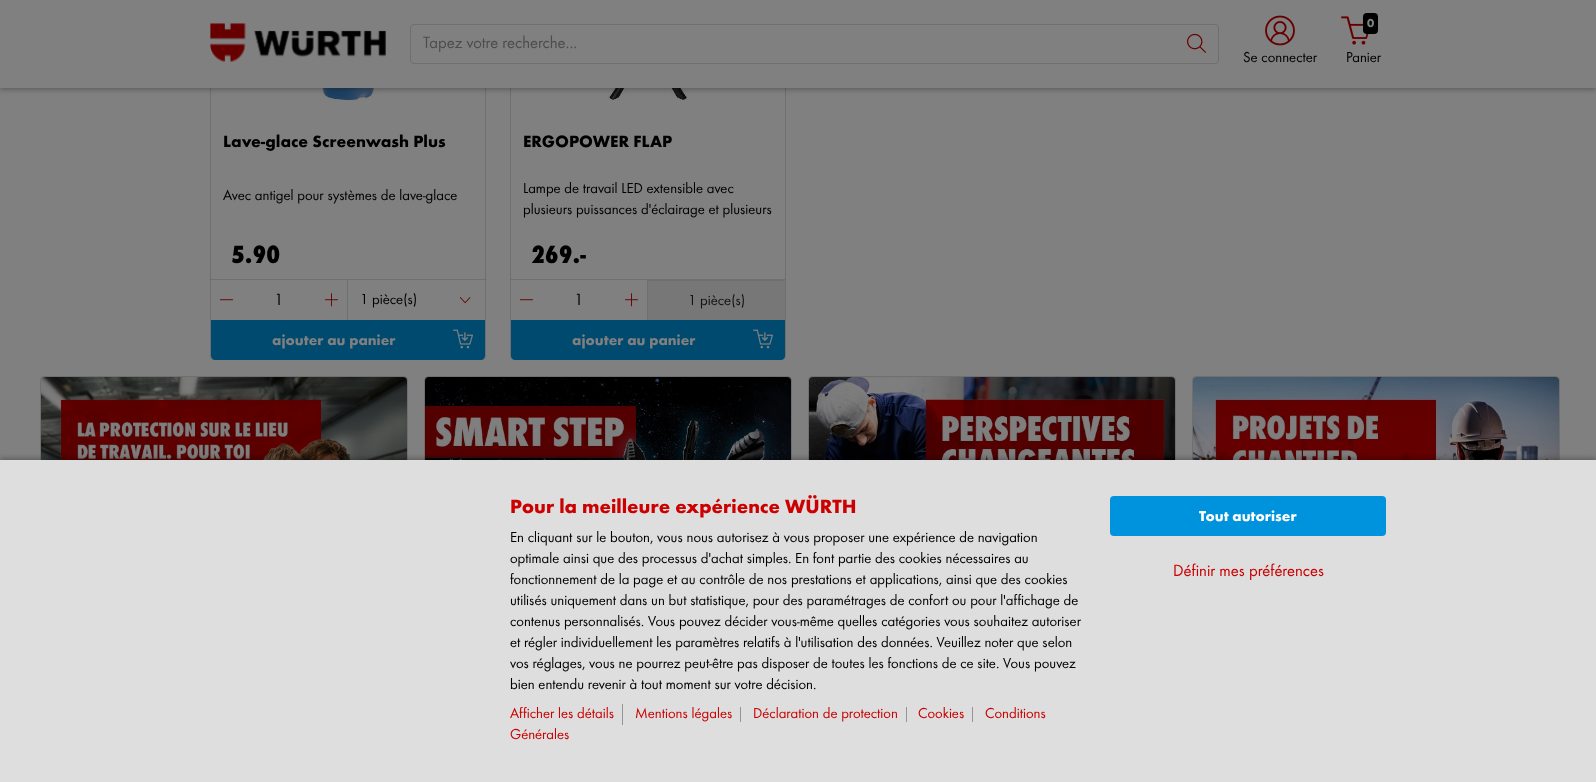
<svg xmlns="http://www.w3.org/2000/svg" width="1596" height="782">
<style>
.a{font:17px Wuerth;fill:#4d4d4d}
.b{font:bold 12px Wuerth;fill:#808080}
.c{font:15px Wuerth;fill:#000}
.d{font:bold 17px Wuerth;fill:#000}
.e{font:800 26px Wuerth;fill:#000}
.f{font:17px Wuerth;fill:#000}
.g{font:bold 15px Wuerth;fill:#808080}
.h{font:15px Wuerth;fill:#131313}
.i{font:bold 20px Wuerth;fill:#c00}
.j{font:15px Wuerth;fill:#c00}
.k{font:bold 15px Wuerth;fill:#fff}
.l{font:17px Wuerth;fill:#c00}
</style>
<rect width="100%" height="100%" fill="#808080"/>
<rect fill="none" stroke="#6f6f6f" x="210.5" y="-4.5" width="275" height="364" rx="3.5"/>
<image href="5.png" x="320" y="88" width="57" height="13"/>
<rect fill="none" stroke="#6f6f6f" x="510.5" y="-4.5" width="275" height="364" rx="3.5"/>
<image href="10.png" x="608" y="88" width="80" height="13"/>
<path fill="#00000042" filter="blur(2.5px)" d="M0 2h1596v88H0z"/>
<path fill="#808080" d="M0 0h1596v88H0z"/>
<image href="1.png" x="210" y="23" width="176" height="39"/>
<rect fill="none" stroke="#6f6f6f" x="410.5" y="24.5" width="808" height="39" rx="3.5"/>
<image href="2.png" x="1187" y="33" width="19" height="20"/>
<image href="3.png" x="1341" y="16" width="28" height="29"/>
<rect fill="#000" x="1363" y="13" width="15" height="21" rx="4"/>
<image href="4.png" x="1265" y="15" width="30" height="31"/>
<path fill="#6f6f6f" d="M211 279h274v1H211z"/>
<path fill="#6f6f6f" d="M347 280h1v40H347z"/>
<image href="6.png" x="220" y="299" width="13" height="2"/>
<image href="7.png" x="325" y="293" width="13" height="14"/>
<image href="8.png" x="459" y="297" width="12" height="7"/>
<path fill="#004a6f" d="M211 320h274v36c0 2-2 4-4 4h-266c-2 0-4-2-4-4z"/>
<image href="9.png" x="453" y="329" width="20" height="20"/>
<path fill="#777" d="M511 279h274v77c0 1.5-1.5 3-3 3h-268c-1.5 0-3-1.5-3-3z"/>
<path fill="#6f6f6f" d="M511 279h274v1H511z"/>
<path fill="#808080" d="M511 280h136v40H511z"/>
<path fill="#6f6f6f" d="M647 280h1v40H647z"/>
<image href="6.png" x="520" y="299" width="13" height="2"/>
<image href="7.png" x="625" y="293" width="13" height="14"/>
<path fill="#6f6f6f" d="M648 280h137v1H648z"/>
<path fill="#004a6f" d="M511 320h274v36c0 2-2 4-4 4h-266c-2 0-4-2-4-4z"/>
<image href="9.png" x="753" y="329" width="20" height="20"/>
<rect fill="#777" stroke="#6f6f6f" x="40.5" y="376.5" width="367" height="254" rx="3.5"/>
<image href="11.png" x="41" y="377" width="366" height="83"/>
<rect fill="#777" stroke="#6f6f6f" x="424.5" y="376.5" width="367" height="254" rx="3.5"/>
<image href="12.png" x="425" y="377" width="366" height="83"/>
<rect fill="#777" stroke="#6f6f6f" x="808.5" y="376.5" width="367" height="254" rx="3.5"/>
<image href="13.png" x="809" y="377" width="366" height="83"/>
<rect fill="#777" stroke="#6f6f6f" x="1192.5" y="376.5" width="367" height="254" rx="3.5"/>
<image href="14.png" x="1193" y="377" width="366" height="83"/>
<path fill="#00000042" filter="blur(2.5px)" d="M0 458h1596v322H0z"/>
<path fill="#dedede" d="M0 460h1596v322H0z"/>
<path fill="#959595" d="M622 704h1v21H622z"/>
<path fill="#959595" d="M740 707h1v15H740z"/>
<path fill="#959595" d="M906 707h1v15H906z"/>
<path fill="#959595" d="M972 707h1v15H972z"/>
<rect fill="#0093dd" x="1110" y="496" width="276" height="40" rx="4"/>
<text class="a" x="423" y="48">Tapez votre recherche...</text>
<text class="b" x="1367" y="27">0</text>
<text class="c" x="1346" y="62">Panier</text>
<text class="c" x="1243" y="62">Se connecter</text>
<text class="d" x="223" y="147">Lave-glace Screenwash Plus</text>
<text class="c" x="223" y="200">Avec antigel pour systèmes de lave-glace</text>
<text class="e" x="231" y="263">5.90</text>
<text class="f" x="274" y="305">1</text>
<text class="c" x="360" y="304">1 pièce(s)</text>
<text class="g" x="272" y="345">ajouter au panier</text>
<text class="d" x="523" y="147">ERGOPOWER FLAP</text>
<text class="c" x="523" y="193">Lampe de travail LED extensible avec</text>
<text class="c" x="523" y="214">plusieurs puissances d'éclairage et plusieurs</text>
<text class="e" x="531" y="263">269.-</text>
<text class="f" x="574" y="305">1</text>
<text class="h" x="688" y="305">1 pièce(s)</text>
<text class="g" x="572" y="345">ajouter au panier</text>
<text class="i" x="510" y="513">Pour la meilleure expérience WÜRTH</text>
<text class="c" x="510" y="542">En cliquant sur le bouton, vous nous autorisez à vous proposer une expérience de navigation</text>
<text class="c" x="510" y="563">optimale ainsi que des processus d'achat simples. En font partie des cookies nécessaires au</text>
<text class="c" x="510" y="584">fonctionnement de la page et au contrôle de nos prestations et applications, ainsi que des cookies</text>
<text class="c" x="510" y="605">utilisés uniquement dans un but statistique, pour des paramétrages de confort ou pour l'affichage de</text>
<text class="c" x="510" y="626">contenus personnalisés. Vous pouvez décider vous-même quelles catégories vous souhaitez autoriser</text>
<text class="c" x="510" y="647">et régler individuellement les paramètres relatifs à l'utilisation des données. Veuillez noter que selon</text>
<text class="c" x="510" y="668">vos réglages, vous ne pourrez peut-être pas disposer de toutes les fonctions de ce site. Vous pouvez</text>
<text class="c" x="510" y="689">bien entendu revenir à tout moment sur votre décision.</text>
<text class="j" x="510" y="718">Afficher les détails</text>
<text class="j" x="635" y="718">Mentions légales</text>
<text class="j" x="753" y="718">Déclaration de protection</text>
<text class="j" x="918" y="718">Cookies</text>
<text class="j" x="985" y="718">Conditions</text>
<text class="j" x="510" y="739">Générales</text>
<text class="k" x="1199" y="521">Tout autoriser</text>
<text class="l" x="1173" y="576">Définir mes préférences</text>
</svg>
